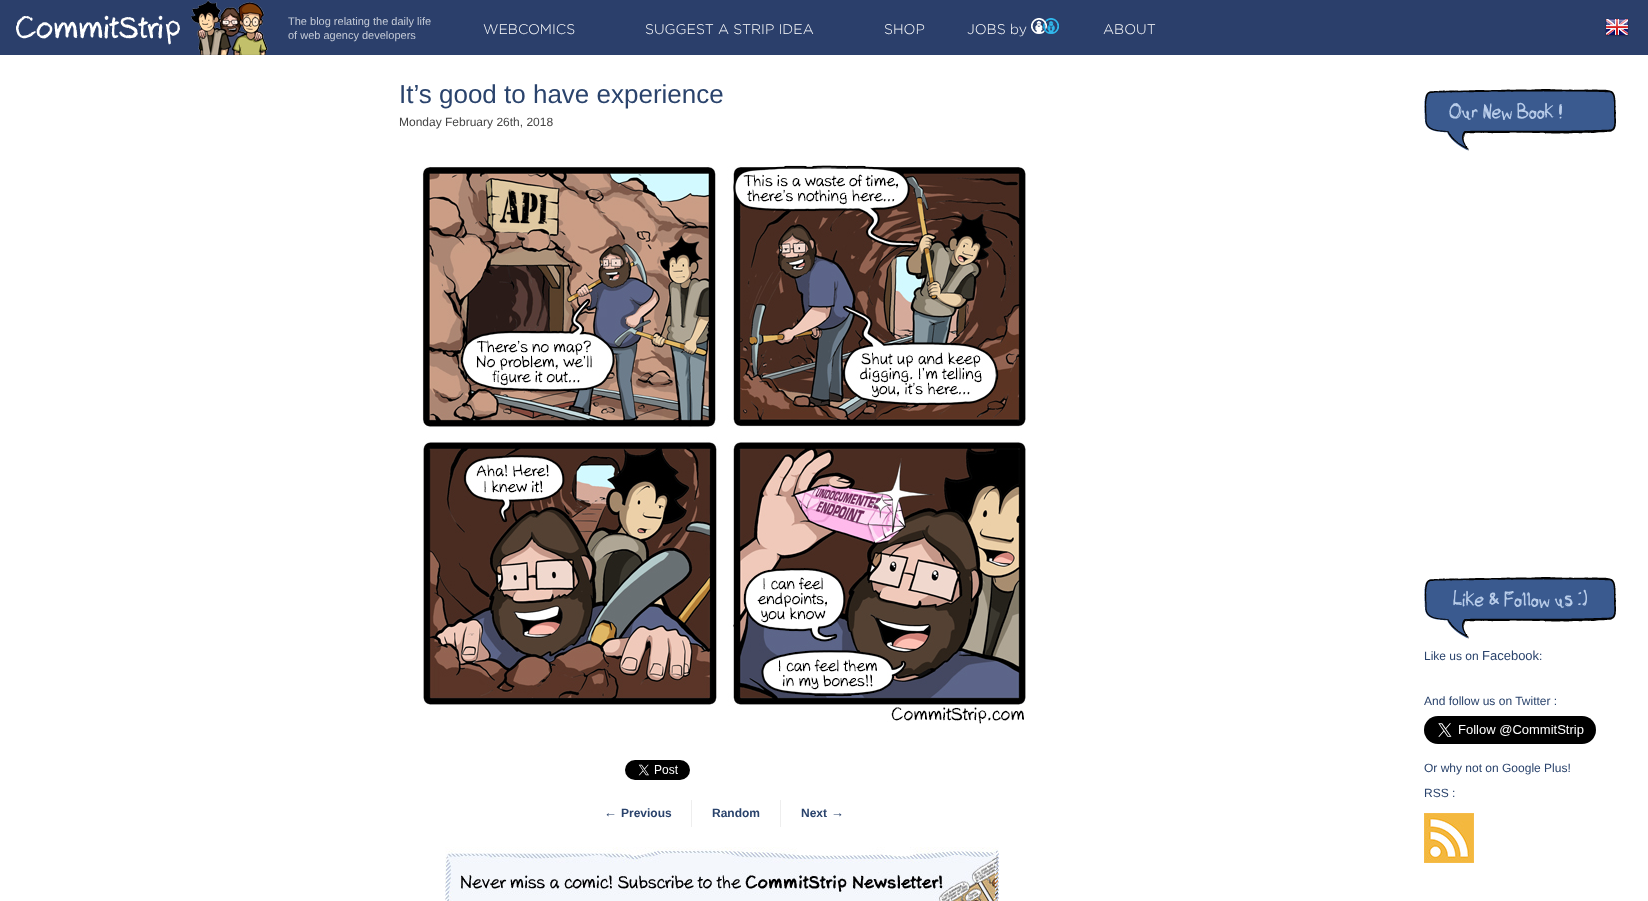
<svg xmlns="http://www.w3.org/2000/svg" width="1648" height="901">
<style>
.a{font:11px Liberation Sans;fill:#c5cbd7}
.b{font:300 14px gotham;fill:#fff}
.c{font:26px Liberation Sans;fill:#2a436c}
.d{font:12px Liberation Sans;fill:#444}
.e{font:13px Liberation Sans;fill:#2a436c}
.f{font:bold 12px Liberation Sans;fill:#2a436c}
.g{font:500 20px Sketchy;fill:#b9cdea}
.h{font:12px Liberation Sans;fill:#2a436c}
</style>
<rect width="100%" height="100%" fill="#fff"/>
<path fill="#2b3f6b" d="M0 0h1648v55H0z"/>
<image href="1.png" x="16" y="0" width="252" height="55"/>
<image href="2.png" x="1031" y="18" width="28" height="16"/>
<image href="3.png" x="1605" y="18" width="24" height="19"/>
<image href="4.png" x="422" y="165" width="604" height="559"/>
<image href="5.png" x="625" y="760" width="65" height="20"/>
<path fill="#eee" d="M780 800h1v27H780z"/>
<path fill="#eee" d="M691 800h1v27H691z"/>
<image href="6.png" x="445" y="847" width="554" height="54"/>
<image href="7.png" x="1424" y="89" width="192" height="62"/>
<image href="7.png" x="1424" y="577" width="192" height="62"/>
<image href="8.png" x="1424" y="716" width="172" height="28"/>
<image href="9.png" x="1424" y="813" width="50" height="50"/>
<text class="a" x="288" y="25">The blog relating the daily life</text>
<text class="a" x="288" y="39">of web agency developers</text>
<text class="b" x="483" y="34">WEBCOMICS</text>
<text class="b" x="645" y="34">SUGGEST A STRIP IDEA</text>
<text class="b" x="884" y="34">SHOP</text>
<text class="b" x="967" y="34">JOBS by</text>
<text class="b" x="1103" y="34">ABOUT</text>
<text class="c" x="399" y="103">It’s good to have experience</text>
<text class="d" x="399" y="126">Monday February 26th, 2018</text>
<text class="e" x="604" y="817">←</text>
<text class="f" x="621" y="817">Previous</text>
<text class="f" x="712" y="817">Random</text>
<text class="f" x="801" y="817">Next</text>
<text class="e" x="831" y="817">→</text>
<text class="g" x="1449" y="117">Our New Book !</text>
<text class="g" x="1453" y="605">Like &amp; Follow us :)</text>
<text class="h" x="1424" y="660">Like us on</text>
<text class="e" x="1482" y="660">Facebook</text>
<text class="h" x="1539" y="660">:</text>
<text class="h" x="1424" y="705">And follow us on Twitter :</text>
<text class="h" x="1424" y="772">Or why not on Google Plus!</text>
<text class="h" x="1424" y="797">RSS :</text>
</svg>
